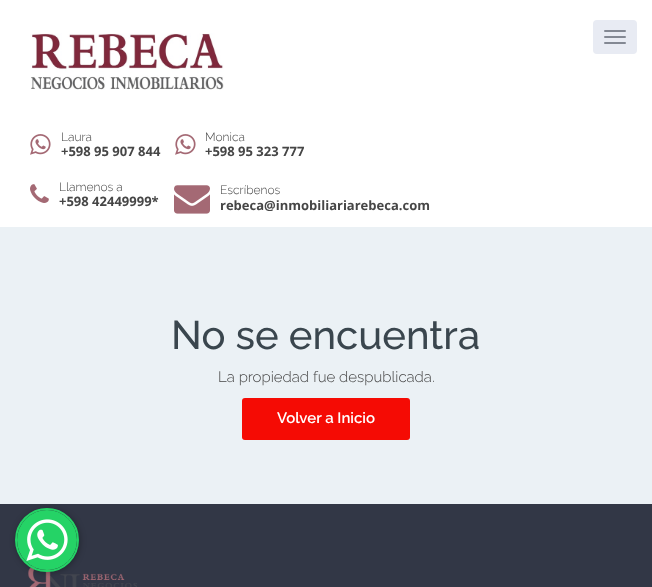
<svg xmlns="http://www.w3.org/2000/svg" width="652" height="587">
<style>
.a{font:300 12px Raleway;fill:#464646}
.b{font:bold 13px Open Sans;fill:#464646}
.c{font:500 40px Raleway;fill:#3a464e}
.d{font:300 15px Raleway;fill:#464646}
.e{font:600 15px Raleway;fill:#fff}
</style>
<rect width="100%" height="100%" fill="#ebf1f5"/>
<path fill="#fff" d="M0 0h652v227H0z"/>
<image href="1.png" x="30" y="33" width="194" height="57"/>
<rect fill="#e8ebf3" x="593" y="20" width="44" height="34" rx="4"/>
<rect fill="#838893" x="604" y="30" width="22" height="2" rx="1"/>
<rect fill="#838893" x="604" y="36" width="22" height="2" rx="1"/>
<rect fill="#838893" x="604" y="42" width="22" height="2" rx="1"/>
<image href="2.png" x="30" y="134" width="21" height="21"/>
<image href="2.png" x="175" y="134" width="21" height="21"/>
<image href="3.png" x="30" y="184" width="19" height="19"/>
<image href="4.png" x="174" y="185" width="36" height="29"/>
<rect fill="#f50b04" x="242" y="398" width="168" height="42" rx="3"/>
<path fill="#323746" d="M0 504h652v83H0z"/>
<image href="6.png" x="28" y="566" width="109" height="21"/>
<rect fill="#0000004d" filter="blur(3px)" x="16" y="509" width="64" height="64" rx="32"/>
<circle fill="none" stroke="#25d366" stroke-width="2" cx="47" cy="540" r="31"/>
<circle fill="#25d366" cx="47" cy="540" r="30"/>
<image href="5.png" x="26" y="519" width="42" height="42"/>
<text class="a" x="61" y="141">Laura</text>
<text class="b" x="61" y="156">+598 95 907 844</text>
<text class="a" x="205" y="141">Monica</text>
<text class="b" x="205" y="156">+598 95 323 777</text>
<text class="a" x="59" y="191">Llamenos a</text>
<text class="b" x="59" y="206">+598 42449999*</text>
<text class="a" x="220" y="194">Escríbenos</text>
<text class="b" x="220" y="210">rebeca@inmobiliariarebeca.com</text>
<text class="c" x="171" y="349">No se encuentra</text>
<text class="d" x="218" y="382">La propiedad fue despublicada.</text>
<text class="e" x="277" y="423">Volver a Inicio</text>
</svg>
